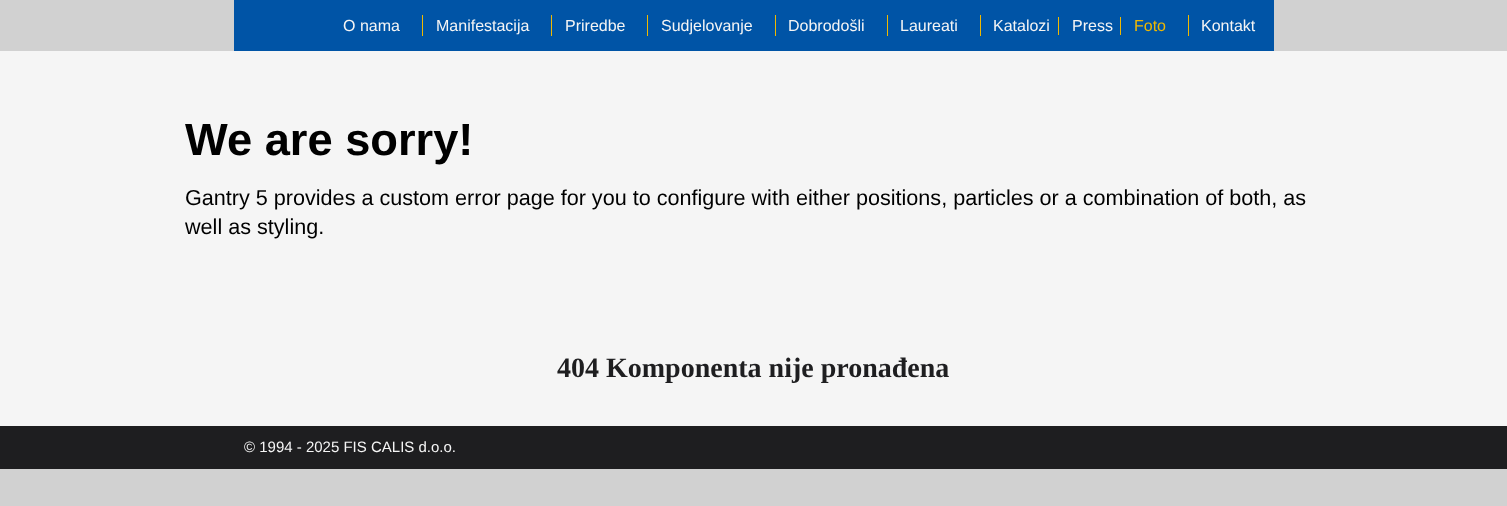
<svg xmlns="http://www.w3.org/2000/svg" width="1507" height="506">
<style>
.a{font:16px Liberation Sans;fill:#f5f5f5}
.b{font:16px Liberation Sans;fill:#f0b800}
.c{font:bold 45.25px Liberation Sans;fill:#000}
.d{font:21.6px Liberation Sans;fill:#000}
.e{font:bold 28px Liberation Serif;fill:#1e1e20}
.f{font:15px Liberation Sans;fill:#f5f5f5}
</style>
<rect width="100%" height="100%" fill="#d1d1d1"/>
<path fill="#0054a6" d="M234 0h1040v51H234z"/>
<path fill="#f0b800" d="M422 15h1v21H422z"/>
<path fill="#f0b800" d="M551 15h1v21H551z"/>
<path fill="#f0b800" d="M647 15h1v21H647z"/>
<path fill="#f0b800" d="M775 15h1v21H775z"/>
<path fill="#f0b800" d="M887 15h1v21H887z"/>
<path fill="#f0b800" d="M980 15h1v21H980z"/>
<path fill="#f0b800" d="M1058 17h1v18H1058z"/>
<path fill="#f0b800" d="M1120 17h1v18H1120z"/>
<path fill="#f0b800" d="M1188 15h1v21H1188z"/>
<path fill="#f5f5f5" d="M0 51h1507v375H0z"/>
<path fill="#1e1e20" d="M0 426h1507v43H0z"/>
<text class="a" x="343" y="31">O nama</text>
<text class="a" x="436" y="31">Manifestacija</text>
<text class="a" x="565" y="31">Priredbe</text>
<text class="a" x="661" y="31">Sudjelovanje</text>
<text class="a" x="788" y="31">Dobrodošli</text>
<text class="a" x="900" y="31">Laureati</text>
<text class="a" x="993" y="31">Katalozi</text>
<text class="a" x="1072" y="31">Press</text>
<text class="b" x="1134" y="31">Foto</text>
<text class="a" x="1201" y="31">Kontakt</text>
<text class="c" x="185" y="155">We are sorry!</text>
<text class="d" x="185" y="205">Gantry 5 provides a custom error page for you to configure with either positions, particles or a combination of both, as</text>
<text class="d" x="185" y="234">well as styling.</text>
<text class="e" x="557" y="377">404 Komponenta nije pronađena</text>
<text class="f" x="244" y="452">© 1994 - 2025 FIS CALIS d.o.o.</text>
</svg>
